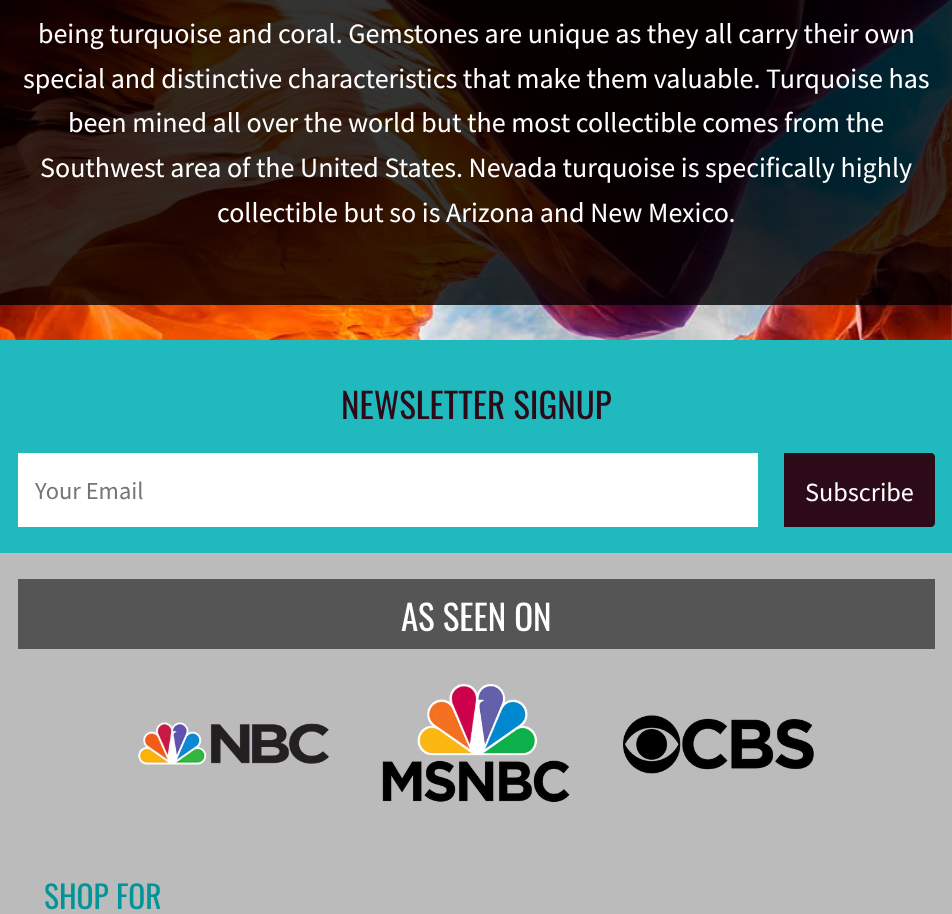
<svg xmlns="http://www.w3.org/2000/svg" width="952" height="914">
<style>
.a{font:28px Source Sans Pro;fill:#fff}
.b{font:35px Oswald;fill:#2d0a18}
.c{font:24.5px Source Sans Pro;fill:#757575}
.d{font:26.25px Source Sans Pro;fill:#fff}
.e{font:35px Oswald;fill:#fff}
.f{font:31.5px Oswald;fill:#019498}
</style>
<rect width="100%" height="100%" fill="#fff"/>
<image href="1.png" x="0" y="0" width="952" height="340"/>
<path fill="#000000cc" d="M0 0h952v305H0z"/>
<path fill="#bbb" d="M0 553h952v361H0z"/>
<path fill="#20babe" d="M0 340h952v213H0z"/>
<path fill="#fff" d="M18 453h740v74H18z"/>
<path fill="#2d0a18" d="M784 453h147c2 0 4 2 4 4v66c0 2-2 4-4 4h-147z"/>
<path fill="#555" d="M18 579h917v70H18z"/>
<image href="2.png" x="138" y="722" width="191" height="43"/>
<image href="3.png" x="382" y="684" width="188" height="119"/>
<image href="4.png" x="623" y="715" width="191" height="59"/>
<text class="a" x="38" y="43">being turquoise and coral. Gemstones are unique as they all carry their own</text>
<text class="a" x="23" y="88">special and distinctive characteristics that make them valuable. Turquoise has</text>
<text class="a" x="68" y="132">been mined all over the world but the most collectible comes from the</text>
<text class="a" x="40" y="177">Southwest area of the United States. Nevada turquoise is specifically highly</text>
<text class="a" x="217" y="222">collectible but so is Arizona and New Mexico.</text>
<text class="b" x="341" y="419">NEWSLETTER SIGNUP</text>
<text class="c" x="35" y="499">Your Email</text>
<text class="d" x="805" y="501">Subscribe</text>
<text class="e" x="401" y="631">AS SEEN ON</text>
<text class="f" x="44" y="909">SHOP FOR</text>
</svg>
